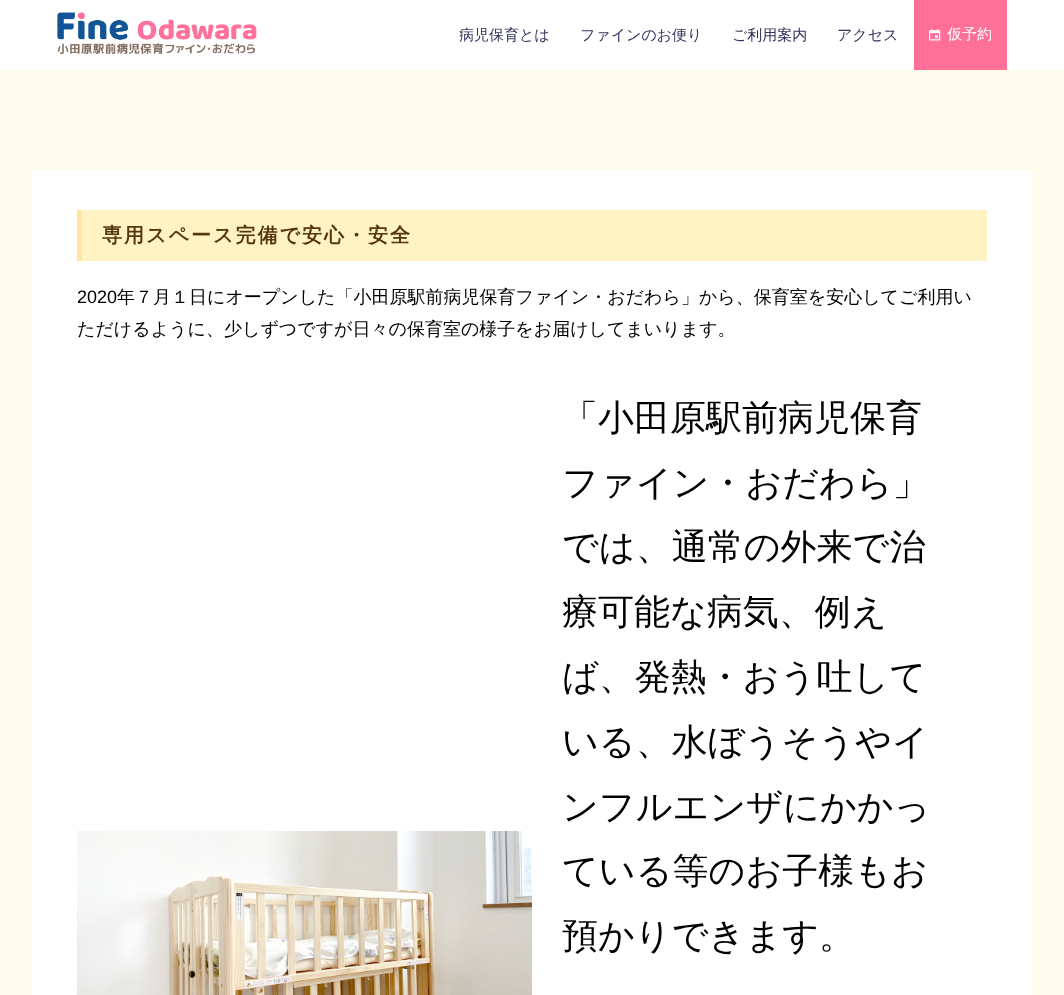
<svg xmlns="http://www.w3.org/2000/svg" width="1064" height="995">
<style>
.a{font:500 15px WenQuanYi Zen Hei;fill:#32355d}
.b{font:500 15px WenQuanYi Zen Hei;fill:#fff}
.c{font:bold 20px WenQuanYi Zen Hei;letter-spacing:2px;fill:#563710}
.d{font:18px Liberation Sans;fill:#000}
.e{font:500 18px WenQuanYi Zen Hei;fill:#000}
.f{font:500 36px WenQuanYi Zen Hei;fill:#000}
</style>
<rect width="100%" height="100%" fill="#fff"/>
<image href="1.png" x="57" y="12" width="200" height="43"/>
<path fill="#ff7099" d="M914 0h93v70H914z"/>
<image href="2.png" x="929" y="29" width="12" height="12"/>
<path fill="#fffbed" d="M0 70h1064v925H0z"/>
<path fill="#fff" d="M32 170h1000v825H32z"/>
<path fill="#fff2c3" d="M82 210h905v51H82z"/>
<path fill="#ffe69c" d="M77 210h5v51H77z"/>
<image href="3.png" x="77" y="831" width="455" height="164"/>
<text class="a" x="459" y="40">病児保育とは</text>
<text class="a" x="580" y="40">ファインのお便り</text>
<text class="a" x="732" y="40">ご利用案内</text>
<text class="a" x="837" y="40">アクセス</text>
<text class="b" x="947" y="39">仮予約</text>
<text class="c" x="102" y="242">専用スペース完備で安心・安全</text>
<text class="d" x="77" y="303">2020</text>
<text class="e" x="117" y="303">年７月１日にオープンした「小田原駅前病児保育ファイン・おだわら」から、保育室を安心してご利用い</text>
<text class="e" x="77" y="335">ただけるように、少しずつですが日々の保育室の様子をお届けしてまいります。</text>
<text class="f" x="562" y="430">「小田原駅前病児保育</text>
<text class="f" x="562" y="495">ファイン・おだわら」</text>
<text class="f" x="562" y="559">では、通常の外来で治</text>
<text class="f" x="562" y="624">療可能な病気、例え</text>
<text class="f" x="562" y="689">ば、発熱・おう吐して</text>
<text class="f" x="562" y="754">いる、水ぼうそうやイ</text>
<text class="f" x="562" y="819">ンフルエンザにかかっ</text>
<text class="f" x="562" y="883">ている等のお子様もお</text>
<text class="f" x="562" y="948">預かりできます。</text>
</svg>
